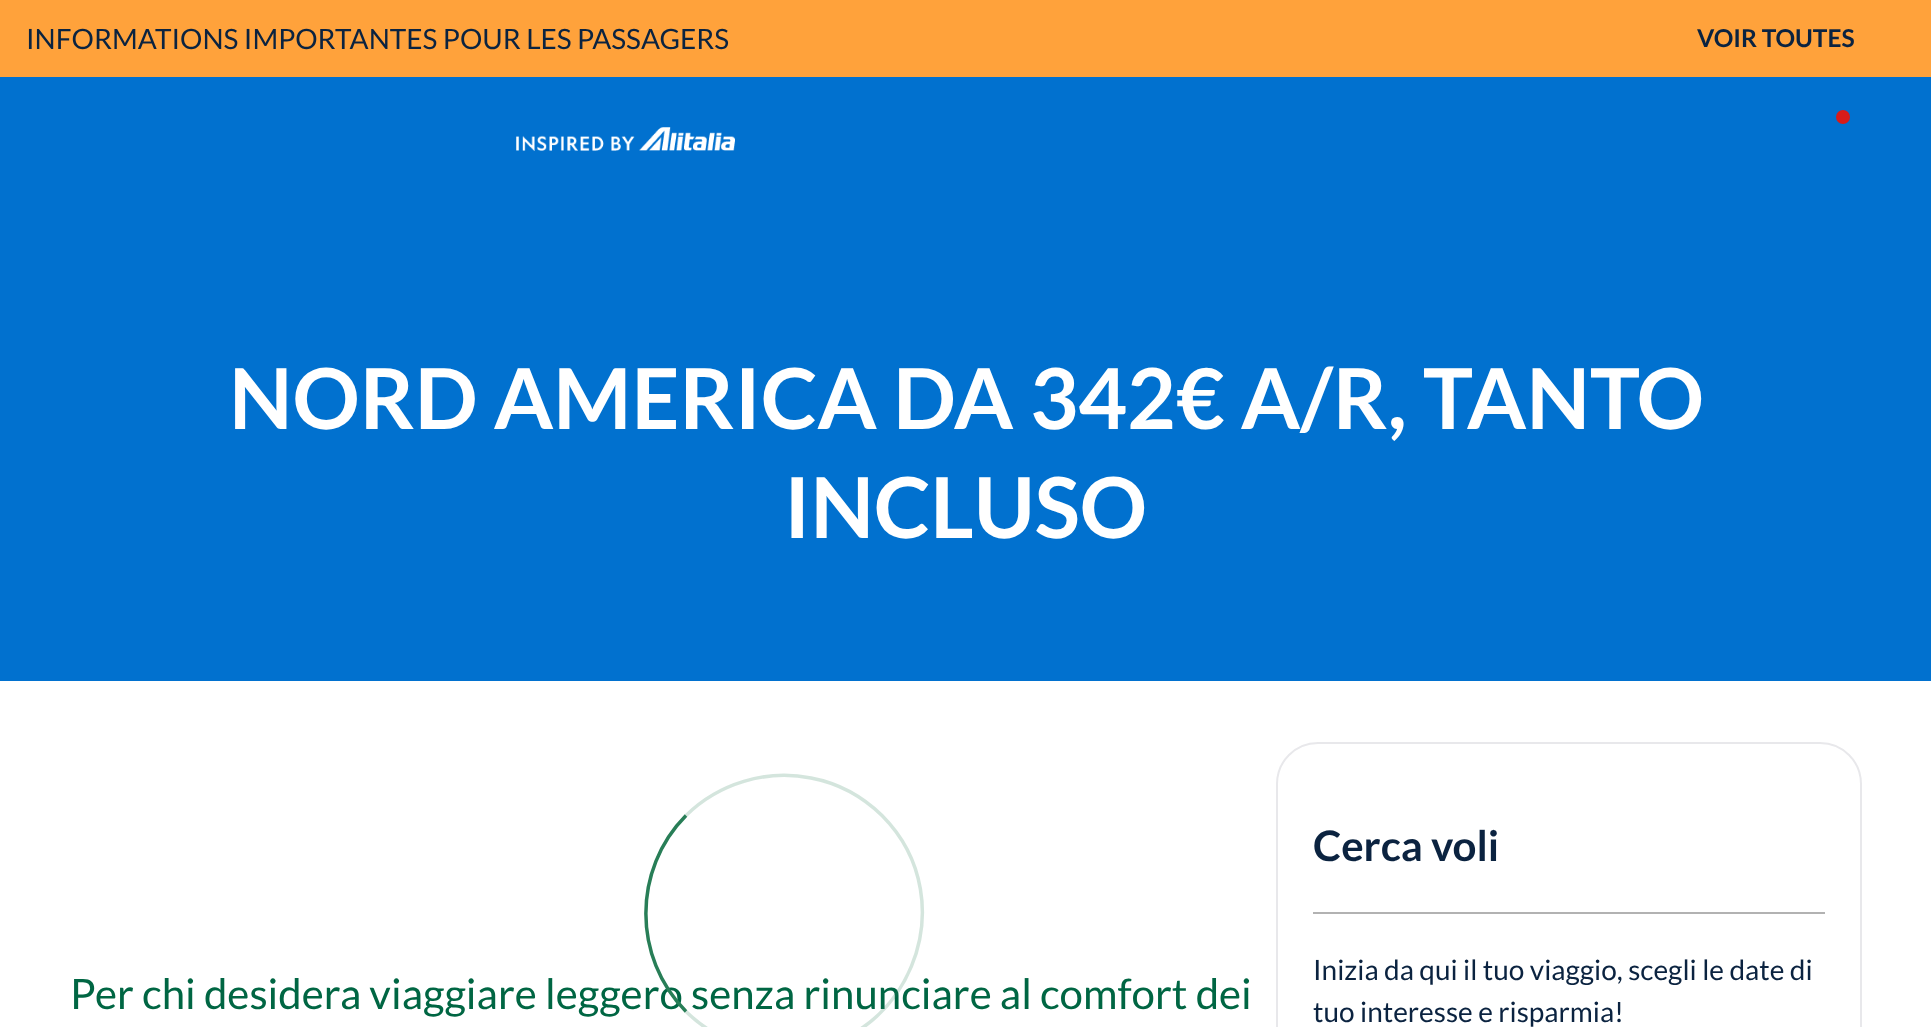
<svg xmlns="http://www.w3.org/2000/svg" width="1931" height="1027">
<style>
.a{font:28px Lato;fill:#0b2340}
.b{font:bold 24.5px Lato;fill:#0b2340}
.c{font:bold 84px Lato;fill:#fff}
.d{font:42px Lato;fill:#006643}
.e{font:bold 42px Lato;fill:#0b2340}
</style>
<rect width="100%" height="100%" fill="#fff"/>
<path fill="#ffa23b" d="M0 0h1931v77H0z"/>
<path fill="#0171cf" d="M0 77h1931v604H0z"/>
<circle fill="#d71b19" cx="1843" cy="117" r="7"/>
<image href="1.png" x="516" y="127" width="219" height="24"/>
<rect fill="none" stroke="#e8e8eb" stroke-width="2" x="1277" y="743" width="584" height="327" rx="41"/>
<path fill="#b2b2b2" d="M1313 912h512v2H1313z"/>
<text class="a" x="26" y="49">INFORMATIONS IMPORTANTES POUR LES PASSAGERS</text>
<text class="b" x="1697" y="47">VOIR TOUTES</text>
<text class="c" x="229" y="429">NORD AMERICA DA 342€ A/R, TANTO</text>
<text class="c" x="784" y="538">INCLUSO</text>
<text class="d" x="70" y="1009">Per chi desidera viaggiare leggero senza rinunciare al comfort dei</text>
<path fill="none" stroke="#287e5733" stroke-width="3.5" d="M686 815.5c32.5-32 80-46.5 125-37.5c26.5 5 51.5 18.5 71 37.5c86.5 87 24.5 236.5-98 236.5c-36.5 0-72-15-98-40.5"/>
<path fill="none" stroke="#287e57" stroke-width="3.5" d="M686 1011.5c-53.5-54-53.5-142 0-196"/>
<text class="e" x="1313" y="861">Cerca voli</text>
<text class="a" x="1313" y="980">Inizia da qui il tuo viaggio, scegli le date di</text>
<text class="a" x="1313" y="1022">tuo interesse e risparmia!</text>
</svg>
